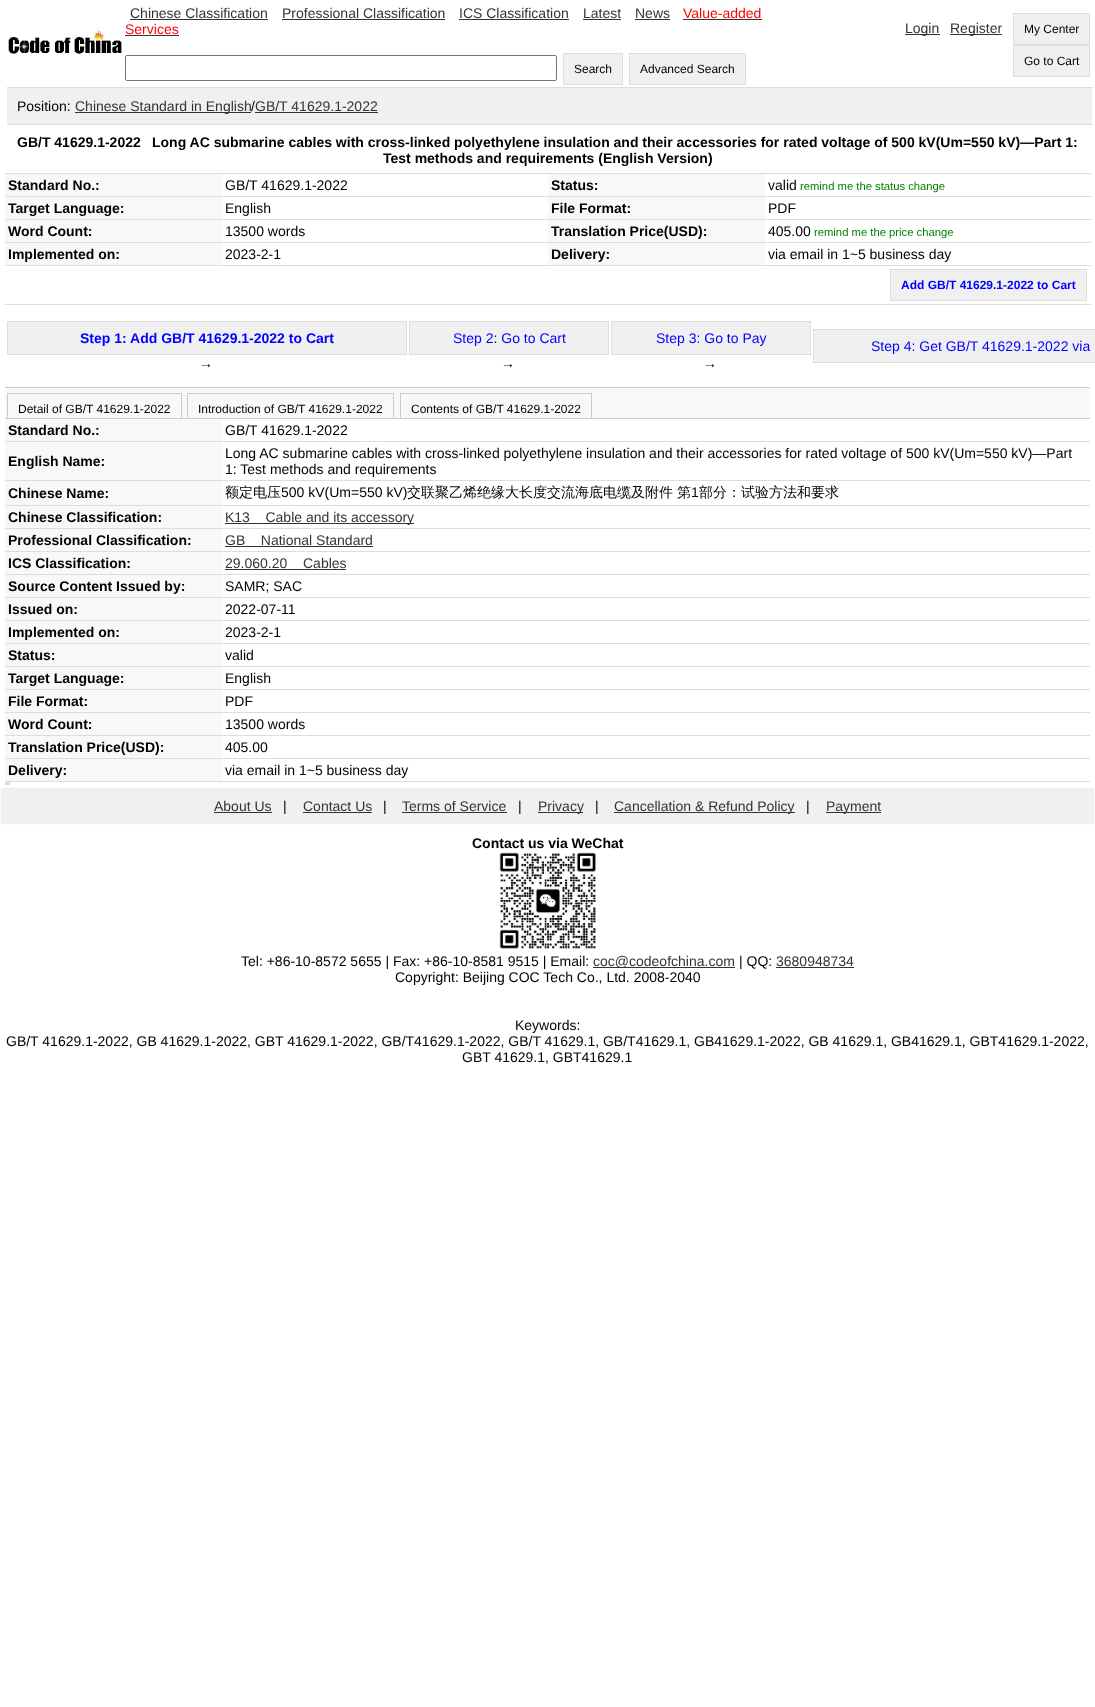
<svg xmlns="http://www.w3.org/2000/svg" width="1095" height="1707">
<style>
.a{font:14px Liberation Sans;fill:#333}
.b{font:14px Liberation Sans;fill:#f00}
.c{font:12px Liberation Sans;fill:#000}
.d{font:14px Liberation Sans;fill:#000}
.e{font:bold 14px Liberation Sans;fill:#000}
.f{font:11.25px Liberation Sans;fill:#008000}
.g{font:bold 12px Liberation Sans;fill:#00f}
.h{font:bold 14px Liberation Sans;fill:#00f}
.i{font:14px Liberation Sans;fill:#00f}
.j{font:500 14px WenQuanYi Zen Hei;fill:#000}
</style>
<rect width="100%" height="100%" fill="#fff"/>
<image href="1.png" x="8" y="28" width="114" height="26"/>
<path fill="#333" d="M130 19h138v1H130z"/>
<path fill="#333" d="M282 19h163v1H282z"/>
<path fill="#333" d="M459 19h110v1H459z"/>
<path fill="#333" d="M583 19h38v1H583z"/>
<path fill="#333" d="M635 19h35v1H635z"/>
<path fill="#333" d="M683 19h79v1H683z"/>
<path fill="#333" d="M125 35h54v1H125z"/>
<rect fill="none" stroke="#767676" x="125.5" y="55.5" width="431" height="25" rx="1.5"/>
<path fill="#f0f0f0" stroke="#ddd" d="M563.5 53.5h59v31H563.5z"/>
<path fill="#f0f0f0" stroke="#ddd" d="M629.5 53.5h116v31H629.5z"/>
<path fill="#333" d="M905 34h35v1H905z"/>
<path fill="#333" d="M950 34h52v1H950z"/>
<path fill="#f0f0f0" stroke="#ddd" d="M1013.5 13.5h76v31H1013.5z"/>
<path fill="#f0f0f0" stroke="#ddd" d="M1013.5 45.5h76v31H1013.5z"/>
<path fill="#f0f0f0" d="M7 88h1085v36H7z"/>
<path fill="#ddd" d="M7 87h1086v1H7z"/>
<path fill="#ddd" d="M7 124h1086v1H7z"/>
<path fill="#333" d="M75 112h176v1H75z"/>
<path fill="#333" d="M255 112h123v1H255z"/>
<path fill="#ddd" d="M5 173h1086v1H5z"/>
<path fill="#f8f8f8" d="M5 174h217v22H5z"/>
<path fill="#f8f8f8" d="M548 174h217v22H548z"/>
<path fill="#ddd" d="M5 196h1086v1H5z"/>
<path fill="#f8f8f8" d="M5 197h217v22H5z"/>
<path fill="#f8f8f8" d="M548 197h217v22H548z"/>
<path fill="#ddd" d="M5 219h1086v1H5z"/>
<path fill="#f8f8f8" d="M5 220h217v22H5z"/>
<path fill="#f8f8f8" d="M548 220h217v22H548z"/>
<path fill="#ddd" d="M5 242h1086v1H5z"/>
<path fill="#f8f8f8" d="M5 243h217v22H5z"/>
<path fill="#f8f8f8" d="M548 243h217v22H548z"/>
<path fill="#ddd" d="M5 265h1086v1H5z"/>
<path fill="#ddd" d="M5 304h1086v1H5z"/>
<path fill="#f0f0f0" stroke="#ddd" d="M890.5 269.5h196v31H890.5z"/>
<path fill="#f0f0f0" stroke="#ddd" d="M7.5 321.5h399v33H7.5z"/>
<path fill="#f0f0f0" stroke="#ddd" d="M409.5 321.5h199v33H409.5z"/>
<path fill="#f0f0f0" stroke="#ddd" d="M611.5 321.5h199v33H611.5z"/>
<path fill="#f0f0f0" stroke="#ddd" d="M813.5 329.5h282v33H813.5z"/>
<path fill="#f8f8f8" d="M5 388h1085v30H5z"/>
<path fill="#ccc" d="M5 387h1085v1H5z"/>
<path fill="#ccc" d="M5 418h1085v1H5z"/>
<path fill="#ccc" d="M7 393h175v1H7z"/>
<path fill="#ccc" d="M181 393h1v25H181z"/>
<path fill="#ccc" d="M7 393h1v25H7z"/>
<path fill="#ccc" d="M187 393h207v1H187z"/>
<path fill="#ccc" d="M393 393h1v25H393z"/>
<path fill="#ccc" d="M187 393h1v25H187z"/>
<path fill="#ccc" d="M400 393h192v1H400z"/>
<path fill="#ccc" d="M591 393h1v25H591z"/>
<path fill="#ccc" d="M400 393h1v25H400z"/>
<path fill="#f8f8f8" d="M5 419h217v22H5z"/>
<path fill="#ddd" d="M5 441h1085v1H5z"/>
<path fill="#f8f8f8" d="M5 442h217v38H5z"/>
<path fill="#ddd" d="M5 480h1085v1H5z"/>
<path fill="#f8f8f8" d="M5 481h217v24H5z"/>
<path fill="#ddd" d="M5 505h1085v1H5z"/>
<path fill="#f8f8f8" d="M5 506h217v22H5z"/>
<path fill="#ddd" d="M5 528h1085v1H5z"/>
<path fill="#333" d="M225 523h189v1H225z"/>
<path fill="#f8f8f8" d="M5 529h217v22H5z"/>
<path fill="#ddd" d="M5 551h1085v1H5z"/>
<path fill="#333" d="M225 546h148v1H225z"/>
<path fill="#f8f8f8" d="M5 552h217v22H5z"/>
<path fill="#ddd" d="M5 574h1085v1H5z"/>
<path fill="#333" d="M225 569h121v1H225z"/>
<path fill="#f8f8f8" d="M5 575h217v22H5z"/>
<path fill="#ddd" d="M5 597h1085v1H5z"/>
<path fill="#f8f8f8" d="M5 598h217v22H5z"/>
<path fill="#ddd" d="M5 620h1085v1H5z"/>
<path fill="#f8f8f8" d="M5 621h217v22H5z"/>
<path fill="#ddd" d="M5 643h1085v1H5z"/>
<path fill="#f8f8f8" d="M5 644h217v22H5z"/>
<path fill="#ddd" d="M5 666h1085v1H5z"/>
<path fill="#f8f8f8" d="M5 667h217v22H5z"/>
<path fill="#ddd" d="M5 689h1085v1H5z"/>
<path fill="#f8f8f8" d="M5 690h217v22H5z"/>
<path fill="#ddd" d="M5 712h1085v1H5z"/>
<path fill="#f8f8f8" d="M5 713h217v22H5z"/>
<path fill="#ddd" d="M5 735h1085v1H5z"/>
<path fill="#f8f8f8" d="M5 736h217v22H5z"/>
<path fill="#ddd" d="M5 758h1085v1H5z"/>
<path fill="#f8f8f8" d="M5 759h217v22H5z"/>
<path fill="#ddd" d="M5 781h1085v1H5z"/>
<path fill="#ddd" d="M5 782h5v3H5z"/>
<path fill="#f0f0f0" stroke="#fcfcfc" d="M0.5 787.5h1094v37H0.5z"/>
<path fill="#333" d="M214 812h58v1H214z"/>
<path fill="#333" d="M303 812h69v1H303z"/>
<path fill="#333" d="M402 812h105v1H402z"/>
<path fill="#333" d="M538 812h45v1H538z"/>
<path fill="#333" d="M614 812h181v1H614z"/>
<path fill="#333" d="M826 812h55v1H826z"/>
<image href="2.png" x="499" y="852" width="97" height="97"/>
<path fill="#333" d="M593 967h142v1H593z"/>
<path fill="#333" d="M776 967h78v1H776z"/>
<text class="a" x="130" y="18">Chinese Classification</text>
<text class="a" x="282" y="18">Professional Classification</text>
<text class="a" x="459" y="18">ICS Classification</text>
<text class="a" x="583" y="18">Latest</text>
<text class="a" x="635" y="18">News</text>
<text class="b" x="683" y="18">Value-added</text>
<text class="b" x="125" y="34">Services</text>
<text class="c" x="574" y="73">Search</text>
<text class="c" x="640" y="73">Advanced Search</text>
<text class="a" x="905" y="33">Login</text>
<text class="a" x="950" y="33">Register</text>
<text class="c" x="1024" y="33">My Center</text>
<text class="c" x="1024" y="65">Go to Cart</text>
<text class="d" x="17" y="111">Position:</text>
<text class="a" x="75" y="111">Chinese Standard in English</text>
<text class="d" x="251" y="111">/</text>
<text class="a" x="255" y="111">GB/T 41629.1-2022</text>
<text class="e" x="17" y="147">GB/T 41629.1-2022</text>
<text class="e" x="152" y="147">Long AC submarine cables with cross-linked polyethylene insulation and their accessories for rated voltage of 500 kV(Um=550 kV)—Part 1:</text>
<text class="e" x="383" y="163">Test methods and requirements (English Version)</text>
<text class="e" x="8" y="190">Standard No.:</text>
<text class="d" x="225" y="190">GB/T 41629.1-2022</text>
<text class="e" x="551" y="190">Status:</text>
<text class="d" x="768" y="190">valid</text>
<text class="f" x="800" y="190">remind me the status change</text>
<text class="e" x="8" y="213">Target Language:</text>
<text class="d" x="225" y="213">English</text>
<text class="e" x="551" y="213">File Format:</text>
<text class="d" x="768" y="213">PDF</text>
<text class="e" x="8" y="236">Word Count:</text>
<text class="d" x="225" y="236">13500 words</text>
<text class="e" x="551" y="236">Translation Price(USD):</text>
<text class="d" x="768" y="236">405.00</text>
<text class="f" x="814" y="236">remind me the price change</text>
<text class="e" x="8" y="259">Implemented on:</text>
<text class="d" x="225" y="259">2023-2-1</text>
<text class="e" x="551" y="259">Delivery:</text>
<text class="d" x="768" y="259">via email in 1~5 business day</text>
<text class="g" x="901" y="289">Add GB/T 41629.1-2022 to Cart</text>
<text class="h" x="80" y="343">Step 1: Add GB/T 41629.1-2022 to Cart</text>
<text class="d" x="199" y="368">→</text>
<text class="i" x="453" y="343">Step 2: Go to Cart</text>
<text class="d" x="501" y="368">→</text>
<text class="i" x="656" y="343">Step 3: Go to Pay</text>
<text class="d" x="703" y="368">→</text>
<text class="i" x="871" y="351">Step 4: Get GB/T 41629.1-2022 via</text>
<text class="c" x="18" y="413">Detail of GB/T 41629.1-2022</text>
<text class="c" x="198" y="413">Introduction of GB/T 41629.1-2022</text>
<text class="c" x="411" y="413">Contents of GB/T 41629.1-2022</text>
<text class="e" x="8" y="435">Standard No.:</text>
<text class="d" x="225" y="435">GB/T 41629.1-2022</text>
<text class="e" x="8" y="466">English Name:</text>
<text class="d" x="225" y="458">Long AC submarine cables with cross-linked polyethylene insulation and their accessories for rated voltage of 500 kV(Um=550 kV)—Part</text>
<text class="d" x="225" y="474">1: Test methods and requirements</text>
<text class="e" x="8" y="498">Chinese Name:</text>
<text class="j" x="225" y="497">额定电压</text>
<text class="d" x="281" y="497">500 kV(Um=550 kV)</text>
<text class="j" x="407" y="497">交联聚乙烯绝缘大长度交流海底电缆及附件</text>
<text class="j" x="677" y="497">第</text>
<text class="d" x="691" y="497">1</text>
<text class="j" x="699" y="497">部分：试验方法和要求</text>
<text class="e" x="8" y="522">Chinese Classification:</text>
<text class="a" xml:space="preserve" x="225" y="522">K13    Cable and its accessory</text>
<text class="e" x="8" y="545">Professional Classification:</text>
<text class="a" xml:space="preserve" x="225" y="545">GB    National Standard</text>
<text class="e" x="8" y="568">ICS Classification:</text>
<text class="a" x="225" y="568">29.060.20</text>
<text class="a" x="303" y="568">Cables</text>
<text class="e" x="8" y="591">Source Content Issued by:</text>
<text class="d" x="225" y="591">SAMR; SAC</text>
<text class="e" x="8" y="614">Issued on:</text>
<text class="d" x="225" y="614">2022-07-11</text>
<text class="e" x="8" y="637">Implemented on:</text>
<text class="d" x="225" y="637">2023-2-1</text>
<text class="e" x="8" y="660">Status:</text>
<text class="d" x="225" y="660">valid</text>
<text class="e" x="8" y="683">Target Language:</text>
<text class="d" x="225" y="683">English</text>
<text class="e" x="8" y="706">File Format:</text>
<text class="d" x="225" y="706">PDF</text>
<text class="e" x="8" y="729">Word Count:</text>
<text class="d" x="225" y="729">13500 words</text>
<text class="e" x="8" y="752">Translation Price(USD):</text>
<text class="d" x="225" y="752">405.00</text>
<text class="e" x="8" y="775">Delivery:</text>
<text class="d" x="225" y="775">via email in 1~5 business day</text>
<text class="a" x="214" y="811">About Us</text>
<text class="d" x="283" y="811">|</text>
<text class="a" x="303" y="811">Contact Us</text>
<text class="d" x="383" y="811">|</text>
<text class="a" x="402" y="811">Terms of Service</text>
<text class="d" x="518" y="811">|</text>
<text class="a" x="538" y="811">Privacy</text>
<text class="d" x="595" y="811">|</text>
<text class="a" x="614" y="811">Cancellation &amp; Refund Policy</text>
<text class="d" x="806" y="811">|</text>
<text class="a" x="826" y="811">Payment</text>
<text class="e" x="472" y="848">Contact us via WeChat</text>
<text class="d" x="241" y="966">Tel: +86-10-8572 5655 | Fax: +86-10-8581 9515 | Email:</text>
<text class="a" x="593" y="966">coc@codeofchina.com</text>
<text class="d" x="739" y="966">| QQ:</text>
<text class="a" x="776" y="966">3680948734</text>
<text class="d" x="395" y="982">Copyright: Beijing COC Tech Co., Ltd. 2008-2040</text>
<text class="d" x="515" y="1030">Keywords:</text>
<text class="d" x="6" y="1046">GB/T 41629.1-2022, GB 41629.1-2022, GBT 41629.1-2022, GB/T41629.1-2022, GB/T 41629.1, GB/T41629.1, GB41629.1-2022, GB 41629.1, GB41629.1, GBT41629.1-2022,</text>
<text class="d" x="462" y="1062">GBT 41629.1, GBT41629.1</text>
</svg>
